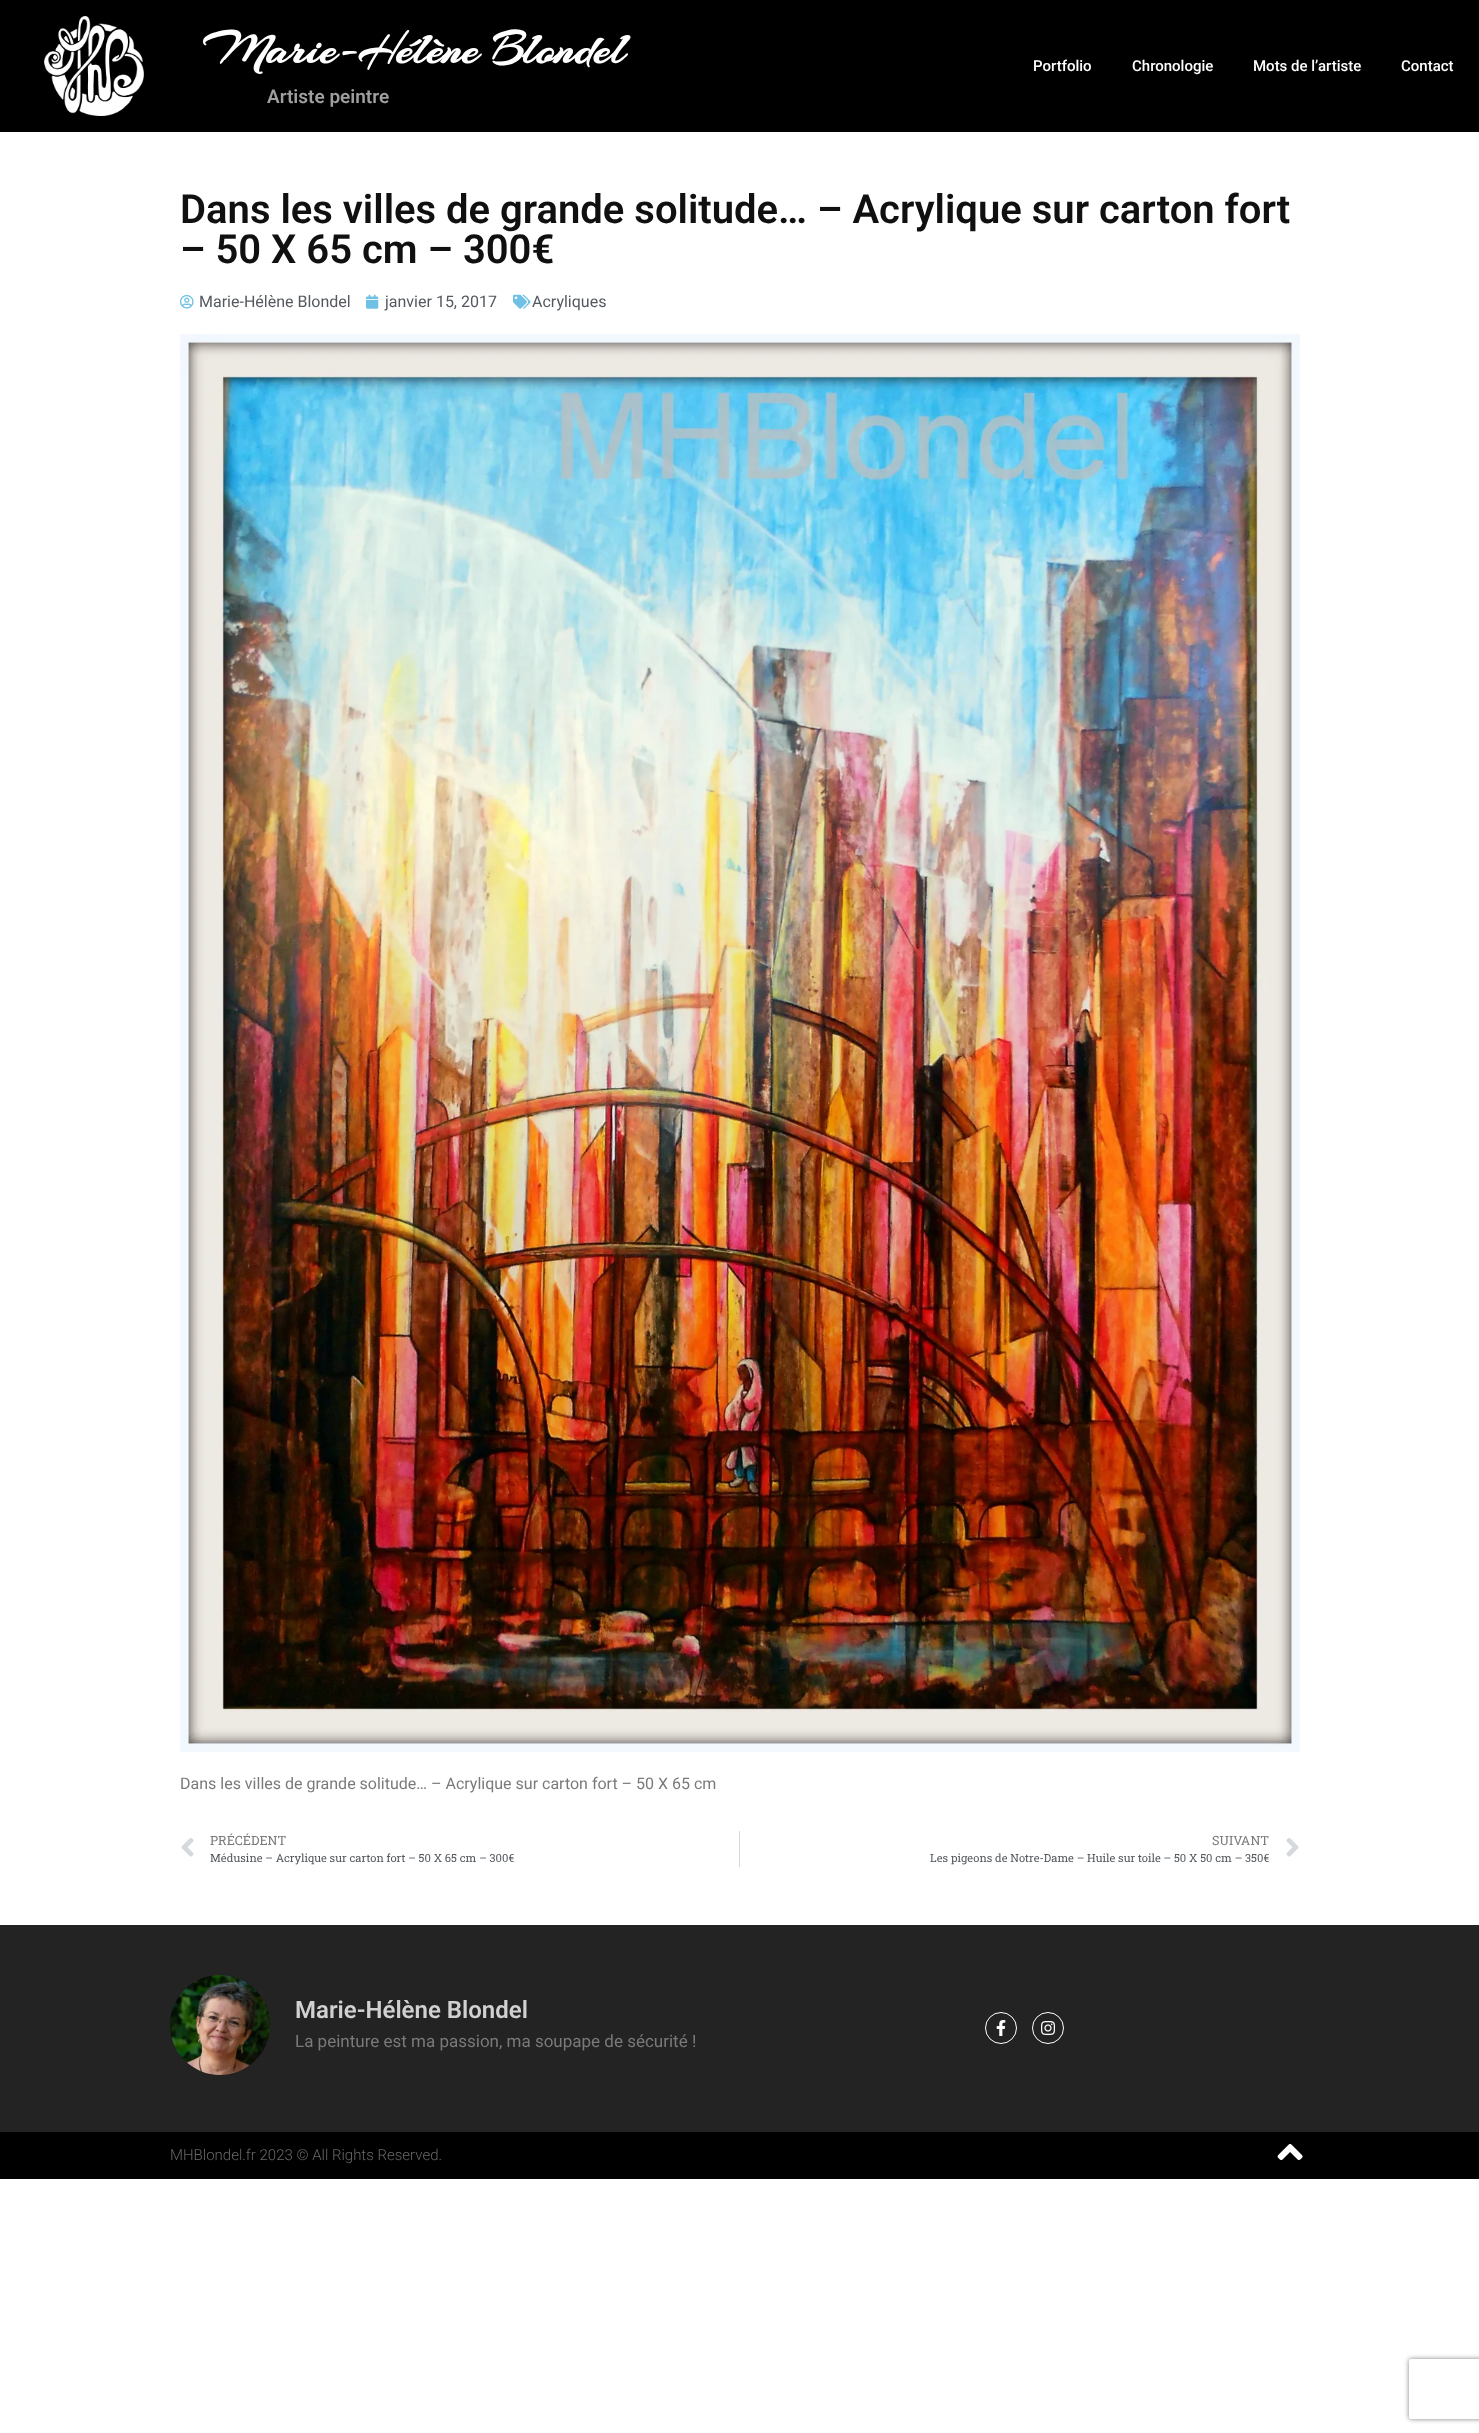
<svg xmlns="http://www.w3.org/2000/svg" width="1479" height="2433">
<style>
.a{font:bold 48px Arizonia;fill:#fff}
.b{font:600 19px Roboto;fill:#9f9f9f}
.c{font:500 15px Roboto;fill:#fff}
.d{font:600 40px Roboto;fill:#101010}
.e{font:16px Roboto;fill:#54595f}
.f{font:16px Roboto;fill:#7a7a7a}
.g{font:12.75px Roboto Slab;fill:#7a7a7a}
.h{font:11.2px Roboto Slab;fill:#54595f}
.i{font:600 24px Roboto;fill:#d1d1d1}
.j{font:17px Roboto;fill:#7a7a7a}
.k{font:300 15px Roboto;fill:#686868}
</style>
<defs>
<clipPath id="clip1"><path d="M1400 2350h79v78h-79zm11 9h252c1 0 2 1 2 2v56c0 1-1 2-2 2h-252c-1 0-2-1-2-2v-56c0-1 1-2 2-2z" clip-rule="evenodd"/></clipPath>
</defs>
<rect width="100%" height="100%" fill="#fff"/>
<path fill="#000" d="M0 0h1479v132H0z"/>
<image href="1.png" x="44" y="16" width="100" height="100"/>
<image href="2.png" x="180" y="295" width="14" height="14"/>
<image href="3.png" x="366" y="294" width="13" height="15"/>
<image href="4.png" x="513" y="294" width="18" height="15"/>
<image href="5.png" x="180" y="334" width="1120" height="1418"/>
<image href="6.png" x="181" y="1838" width="13" height="19"/>
<path fill="#d5d8dc" d="M739 1831h1v36H739z"/>
<image href="7.png" x="1286" y="1838" width="13" height="19"/>
<path fill="#232323" d="M0 1925h1479v207H0z"/>
<image href="8.png" x="170" y="1975" width="100" height="100"/>
<circle fill="none" stroke="#fff" cx="1001" cy="2028" r="15.5"/>
<image href="9.png" x="996" y="2020" width="10" height="16"/>
<circle fill="none" stroke="#fff" cx="1048" cy="2028" r="15.5"/>
<image href="10.png" x="1041" y="2021" width="14" height="14"/>
<path fill="#000" d="M0 2132h1479v47H0z"/>
<image href="11.png" x="1277" y="2144" width="26" height="16"/>
<g clip-path="url(#clip1)">
<rect fill="#808080" filter="blur(2.5px)" x="1409" y="2359" width="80" height="60" rx="2"/>
</g>
<text class="a" x="203" y="63">Marie-Hélène Blondel</text>
<text class="b" x="267" y="103">Artiste peintre</text>
<text class="c" x="1033" y="71">Portfolio</text>
<text class="c" x="1132" y="71">Chronologie</text>
<text class="c" x="1253" y="71">Mots de l’artiste</text>
<text class="c" x="1401" y="71">Contact</text>
<text class="d" x="180" y="223">Dans les villes de grande solitude… – Acrylique sur carton fort</text>
<text class="d" x="180" y="263">– 50 X 65 cm – 300€</text>
<text class="e" x="199" y="307">Marie-Hélène Blondel</text>
<text class="e" x="385" y="307">janvier 15, 2017</text>
<text class="e" x="532" y="307">Acryliques</text>
<text class="f" x="180" y="1789">Dans les villes de grande solitude… – Acrylique sur carton fort – 50 X 65 cm</text>
<text class="g" x="210" y="1845">PRÉCÉDENT</text>
<text class="h" x="210" y="1862">Médusine – Acrylique sur carton fort – 50 X 65 cm – 300€</text>
<text class="g" x="1212" y="1845">SUIVANT</text>
<text class="h" x="930" y="1862">Les pigeons de Notre-Dame – Huile sur toile – 50 X 50 cm – 350€</text>
<text class="i" x="295" y="2018">Marie-Hélène Blondel</text>
<text class="j" x="295" y="2047">La peinture est ma passion, ma soupape de sécurité !</text>
<text class="k" x="170" y="2160">MHBlondel.fr 2023 © All Rights Reserved.</text>
</svg>
